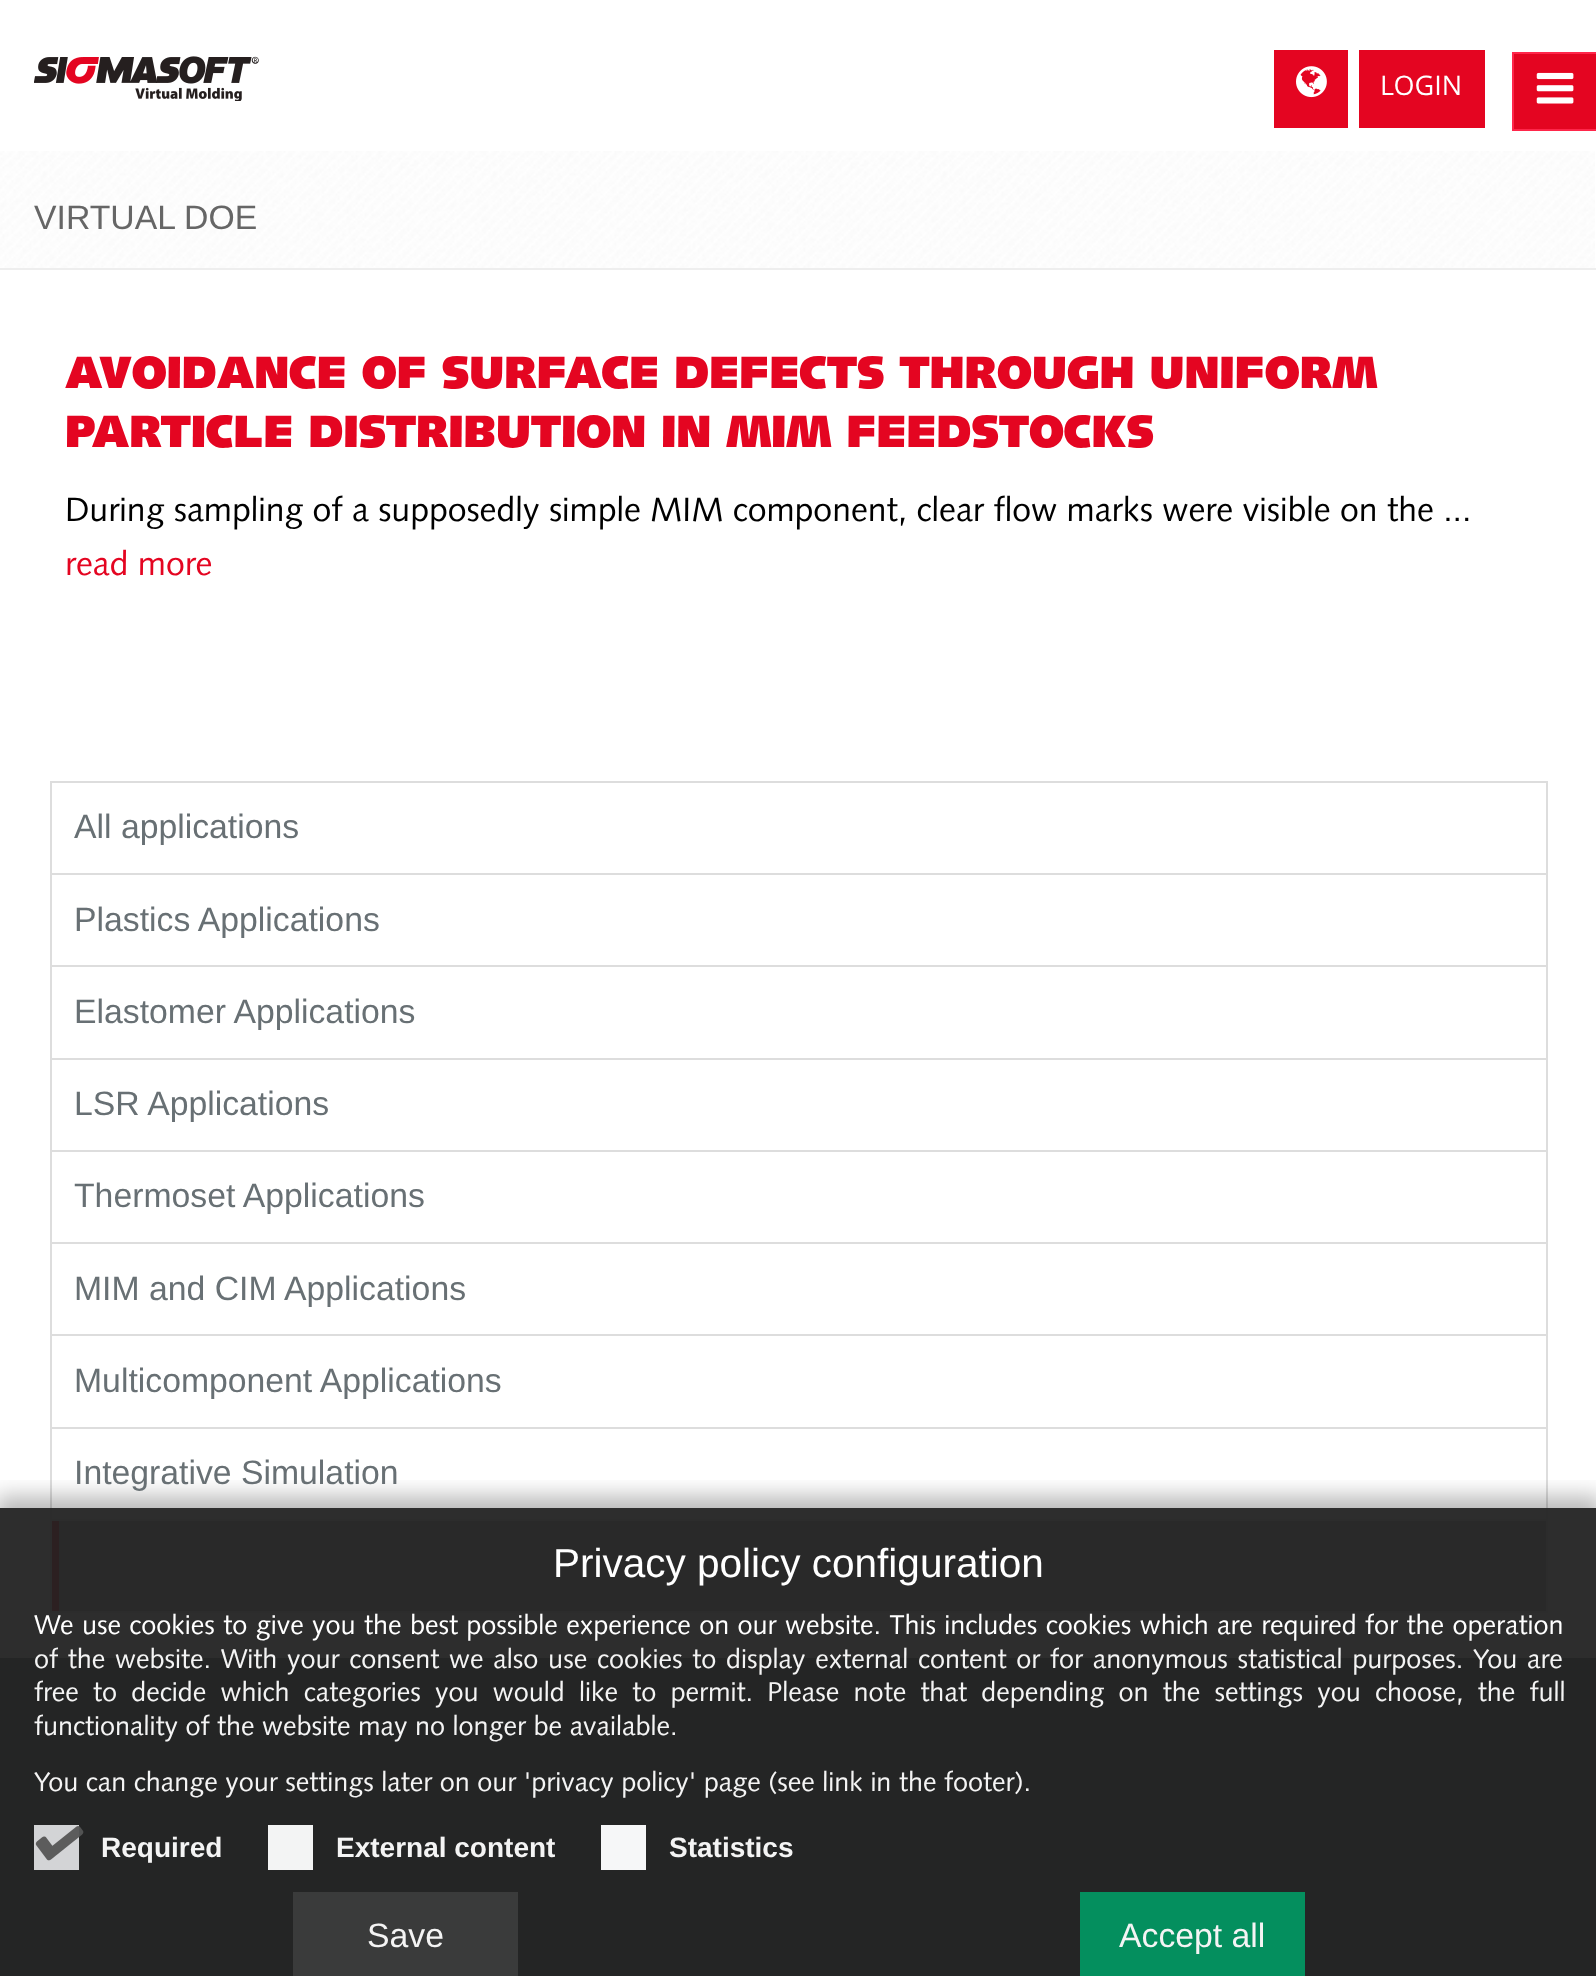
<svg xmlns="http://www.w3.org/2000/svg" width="1596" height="1976">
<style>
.a{font:27px Open Sans;fill:#fff}
.b{font:33.75px Liberation Sans;fill:#666}
.c{font:800 45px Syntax;fill:#e40521}
.d{font:33.75px Syntax;fill:#000}
.e{font:33.75px Syntax;fill:#e40521}
.f{font:33.75px Liberation Sans;fill:#687074}
.g{font:40.5px Liberation Sans;fill:#fff}
.h{font:27px Syntax;fill:#fff}
.i{font:27px Syntax;fill:#f4f4f4}
.j{font:bold 28px Liberation Sans;fill:#f4f4f4}
.k{font:33.75px Liberation Sans;fill:#f4f4f4}
</style>
<defs>
<clipPath id="clip1"><path d="M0 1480h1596v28H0z"/></clipPath>
</defs>
<rect width="100%" height="100%" fill="#fff"/>
<image href="1.png" x="34" y="56" width="225" height="45"/>
<path fill="#e40521" stroke="#ff264a" stroke-width="2" d="M1513 53h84v77H1513z"/>
<image href="2.png" x="1536" y="72" width="38" height="32"/>
<path fill="#e40521" d="M1274 50h74v78H1274z"/>
<image href="3.png" x="1296" y="66" width="31" height="32"/>
<path fill="#e40521" d="M1359 50h126v78H1359z"/>
<image href="4.png" x="0" y="151" width="1595" height="117"/>
<path fill="#eee" d="M0 268h1596v2H0z"/>
<path fill="none" stroke="#ddd" stroke-width="2" d="M51 782h1496v92H51z"/>
<path fill="none" stroke="#ddd" stroke-width="2" d="M51 874h1496v93H51z"/>
<path fill="#fff" d="M52 967h1494v1H52z"/>
<path fill="none" stroke="#ddd" stroke-width="2" d="M51 966h1496v93H51z"/>
<path fill="none" stroke="#ddd" stroke-width="2" d="M51 1059h1496v92H51z"/>
<path fill="none" stroke="#ddd" stroke-width="2" d="M51 1151h1496v92H51z"/>
<path fill="none" stroke="#ddd" stroke-width="2" d="M51 1243h1496v93H51z"/>
<path fill="#fff" d="M52 1336h1494v1H52z"/>
<path fill="none" stroke="#ddd" stroke-width="2" d="M51 1335h1496v93H51z"/>
<path fill="none" stroke="#ddd" stroke-width="2" d="M51 1428h1496v92H51z"/>
<path fill="none" stroke="#ddd" stroke-width="2" d="M51 1520h1496v92H51z"/>
<path fill="#a8adb4" d="M59 1521h1487v90H59z"/>
<path fill="#e40521" d="M52 1521h7v90H52z"/>
<path fill="#52656c" d="M0 1658h1596v318H0z"/>
<g clip-path="url(#clip1)">
<path fill="#00000047" filter="blur(11px)" d="M-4 1496h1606v480H-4z"/>
</g>
<path fill="#222222f2" d="M0 1508h1596v468H0z"/>
<path fill="#dddddff2" d="M34 1825h45v45H34z"/>
<image href="5.png" x="35" y="1826" width="49" height="35"/>
<path fill="#fffffff2" d="M268 1825h45v45H268z"/>
<path fill="#f6f7f8" d="M601 1825h45v45H601z"/>
<path fill="#3c3c3cf2" d="M293 1892h225v84H293z"/>
<path fill="#048f5e" d="M1080 1892h225v84H1080z"/>
<text class="a" x="1380" y="95">LOGIN</text>
<text class="b" x="34" y="229">VIRTUAL DOE</text>
<text class="c" x="65" y="388">AVOIDANCE OF SURFACE DEFECTS THROUGH UNIFORM</text>
<text class="c" x="65" y="447">PARTICLE DISTRIBUTION IN MIM FEEDSTOCKS</text>
<text class="d" x="65" y="521">During sampling of a supposedly simple MIM component, clear flow marks were visible on the ...</text>
<text class="e" x="65" y="575">read more</text>
<text class="f" x="74" y="838">All applications</text>
<text class="f" x="74" y="931">Plastics Applications</text>
<text class="f" x="74" y="1023">Elastomer Applications</text>
<text class="f" x="74" y="1115">LSR Applications</text>
<text class="f" x="74" y="1207">Thermoset Applications</text>
<text class="f" x="74" y="1300">MIM and CIM Applications</text>
<text class="f" x="74" y="1392">Multicomponent Applications</text>
<text class="f" x="74" y="1484">Integrative Simulation</text>
<text class="g" x="553" y="1577">Privacy policy configuration</text>
<text class="h" x="34" y="1634" word-spacing="0.9">We use cookies to give you the best possible experience on our website. This includes cookies which are required for the operation</text>
<text class="i" x="34" y="1668" word-spacing="2.25">of the website. With your consent we also use cookies to display external content or for anonymous statistical purposes. You are</text>
<text class="i" x="34" y="1701" word-spacing="6.75">free to decide which categories you would like to permit. Please note that depending on the settings you choose, the full</text>
<text class="i" x="34" y="1735">functionality of the website may no longer be available.</text>
<text class="i" x="34" y="1791">You can change your settings later on our 'privacy policy' page (see link in the footer).</text>
<text class="j" x="101" y="1857">Required</text>
<text class="j" x="336" y="1857">External content</text>
<text class="j" x="669" y="1857">Statistics</text>
<text class="k" x="367" y="1947">Save</text>
<text class="k" x="1119" y="1947">Accept all</text>
</svg>
